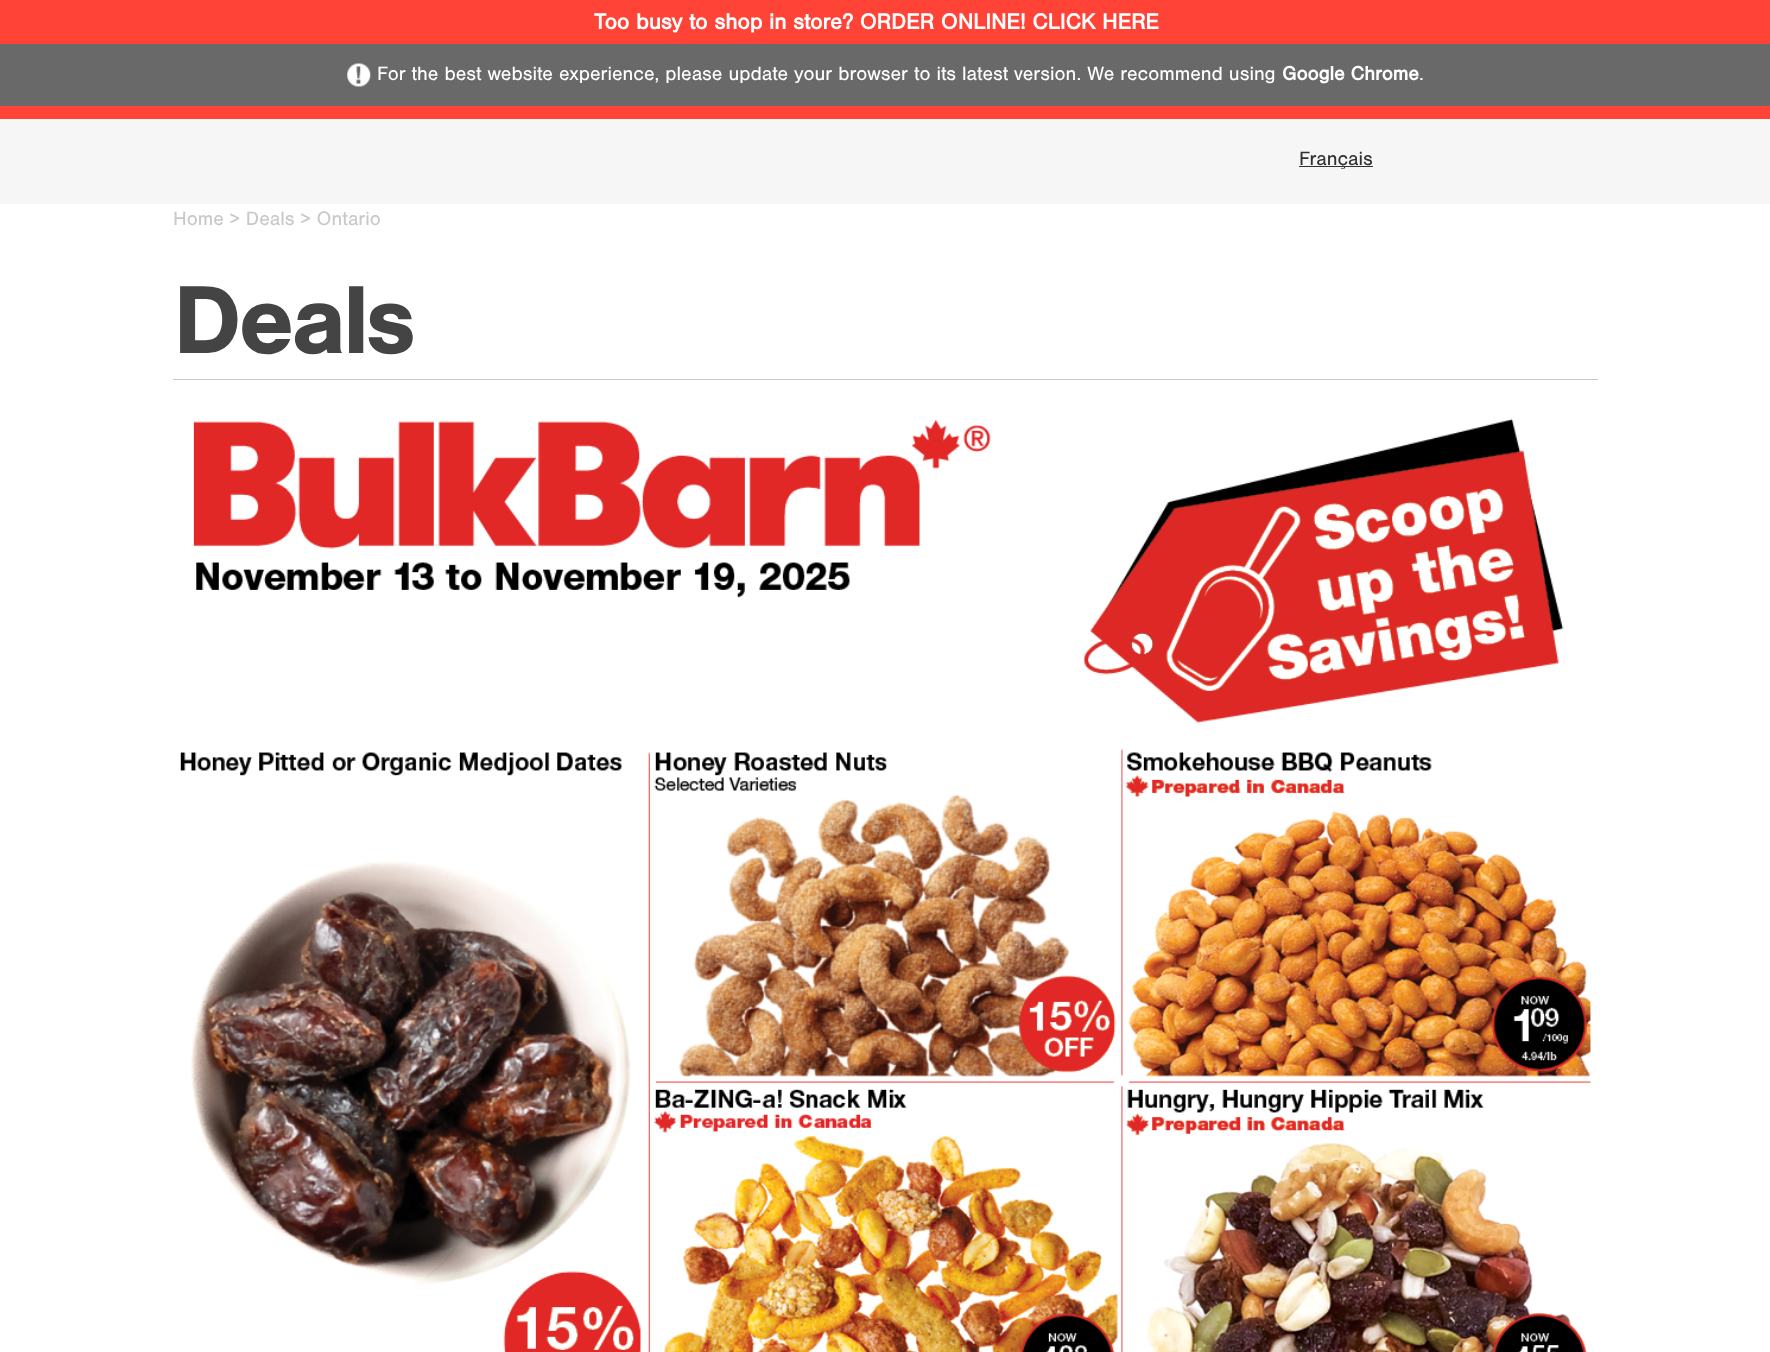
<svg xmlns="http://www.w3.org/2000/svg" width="1770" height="1352">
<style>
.a{font:bold 22.5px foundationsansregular;fill:#fff}
.b{font:20px foundationsansregular;fill:#fff}
.c{font:bold 20px foundationsansregular;fill:#fff}
.d{font:20px foundationsansregular;fill:#323132}
.e{font:20px foundationsansregular;fill:#c6c8ca}
.f{font:bold 100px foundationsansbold;letter-spacing:-3.75px;fill:#444}
</style>
<rect width="100%" height="100%" fill="#fff"/>
<path fill="#ff4337" d="M0 0h1770v44H0z"/>
<path fill="#696969" d="M0 44h1770v62H0z"/>
<image href="1.png" x="347" y="63" width="24" height="24"/>
<path fill="#ff4337" d="M0 106h1770v13H0z"/>
<path fill="#f6f6f6" d="M0 119h1770v85H0z"/>
<path fill="#323132" d="M1299 166h74v1H1299z"/>
<path fill="#c6c8ca" d="M173 379h1425v1H173z"/>
<image href="2.png" x="180" y="418" width="1411" height="934"/>
<text class="a" x="594" y="29">Too busy to shop in store? ORDER ONLINE! CLICK HERE</text>
<text class="b" x="377" y="80">For the best website experience, please update your browser to its latest version. We recommend using</text>
<text class="c" x="1282" y="80">Google Chrome</text>
<text class="b" x="1419" y="80">.</text>
<text class="d" x="1299" y="165">Français</text>
<text class="e" x="173" y="225">Home &gt; Deals &gt; Ontario</text>
<text class="f" x="173" y="353">Deals</text>
</svg>
